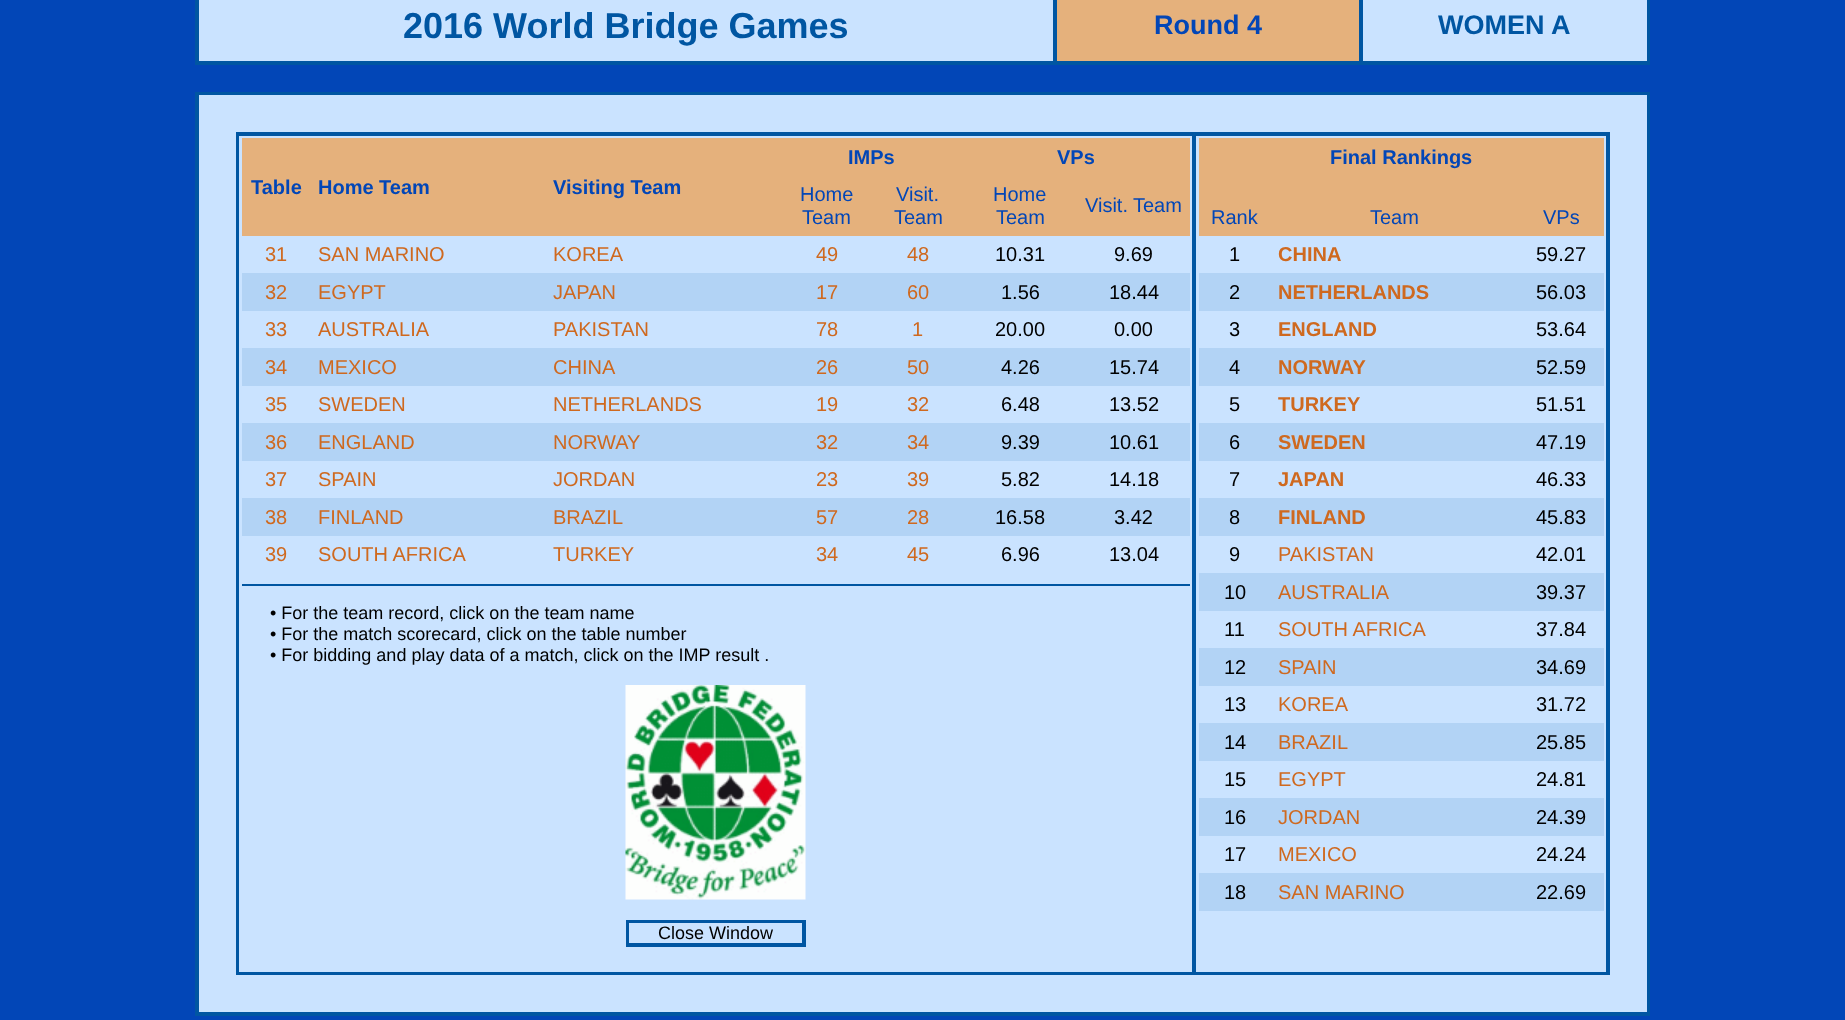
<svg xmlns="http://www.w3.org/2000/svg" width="1845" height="1020">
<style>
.a{font:bold 36px Liberation Sans;fill:#0056a2}
.b{font:bold 27px Liberation Sans;fill:#0246b7}
.c{font:bold 27px Liberation Sans;fill:#0056a2}
.d{font:bold 20px Liberation Sans;fill:#0246b7}
.e{font:20px Liberation Sans;fill:#0246b7}
.f{font:20px Liberation Sans;fill:#cf691f}
.g{font:20px Liberation Sans;fill:#000}
.h{font:18px Liberation Sans;fill:#000}
.i{font:bold 20px Liberation Sans;fill:#cf691f}
</style>
<rect width="100%" height="100%" fill="#0246b7"/>
<path fill="none" stroke="#0056a2" stroke-width="2" d="M196 -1h1453v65H196z"/>
<path fill="#cae3ff" stroke="#0056a2" stroke-width="2" d="M198 -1h856v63H198z"/>
<path fill="#e5b17c" stroke="#0056a2" stroke-width="2" d="M1056 -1h304v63H1056z"/>
<path fill="#cae3ff" stroke="#0056a2" stroke-width="2" d="M1362 -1h286v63H1362z"/>
<path fill="#cae3ff" d="M199 95h1448v917H199z"/>
<path fill="none" stroke="#0056a2" stroke-width="2" d="M196 93h1453v922H196z"/>
<path fill="none" stroke="#0056a2" stroke-width="2" d="M198 94h1450v919H198z"/>
<path fill="none" stroke="#0056a2" stroke-width="2" d="M237 133h1372v841H237z"/>
<path fill="none" stroke="#0056a2" stroke-width="2" d="M238 135h955v838H238z"/>
<path fill="#e5b17c" d="M780 138h410v38H780z"/>
<path fill="#e5b17c" d="M242 138h538v98H242z"/>
<path fill="#e5b17c" d="M780 176h410v60H780z"/>
<path fill="#b2d3f5" d="M242 273h948v38H242z"/>
<path fill="#b2d3f5" d="M242 348h948v38H242z"/>
<path fill="#b2d3f5" d="M242 423h948v38H242z"/>
<path fill="#b2d3f5" d="M242 498h948v38H242z"/>
<path fill="#0056a2" d="M242 584h948v2H242z"/>
<image href="1.png" x="625" y="685" width="181" height="215"/>
<path fill="none" stroke="#0056a2" stroke-width="2" d="M627 921h178v25H627z"/>
<path fill="none" stroke="#0056a2" stroke-width="2" d="M628 922h175v22H628z"/>
<path fill="none" stroke="#0056a2" stroke-width="2" d="M1195 135h412v838H1195z"/>
<path fill="#e5b17c" d="M1199 138h405v60H1199z"/>
<path fill="#e5b17c" d="M1199 198h405v38H1199z"/>
<path fill="#b2d3f5" d="M1199 273h405v38H1199z"/>
<path fill="#b2d3f5" d="M1199 348h405v38H1199z"/>
<path fill="#b2d3f5" d="M1199 423h405v38H1199z"/>
<path fill="#b2d3f5" d="M1199 498h405v38H1199z"/>
<path fill="#b2d3f5" d="M1199 573h405v38H1199z"/>
<path fill="#b2d3f5" d="M1199 648h405v38H1199z"/>
<path fill="#b2d3f5" d="M1199 723h405v38H1199z"/>
<path fill="#b2d3f5" d="M1199 798h405v38H1199z"/>
<path fill="#b2d3f5" d="M1199 873h405v38H1199z"/>
<text class="a" x="403" y="38">2016 World Bridge Games</text>
<text class="b" x="1154" y="34">Round 4</text>
<text class="c" x="1438" y="34">WOMEN A</text>
<text class="d" x="848" y="164">IMPs</text>
<text class="d" x="1057" y="164">VPs</text>
<text class="d" x="251" y="194">Table</text>
<text class="d" x="318" y="194">Home Team</text>
<text class="d" x="553" y="194">Visiting Team</text>
<text class="e" x="800" y="201">Home</text>
<text class="e" x="802" y="224">Team</text>
<text class="e" x="896" y="201">Visit.</text>
<text class="e" x="894" y="224">Team</text>
<text class="e" x="993" y="201">Home</text>
<text class="e" x="996" y="224">Team</text>
<text class="e" x="1085" y="212">Visit.</text>
<text class="e" x="1133" y="212">Team</text>
<text class="f" x="265" y="261">31</text>
<text class="f" x="318" y="261">SAN MARINO</text>
<text class="f" x="553" y="261">KOREA</text>
<text class="f" x="816" y="261">49</text>
<text class="f" x="907" y="261">48</text>
<text class="g" x="995" y="261">10.31</text>
<text class="g" x="1114" y="261">9.69</text>
<text class="f" x="265" y="299">32</text>
<text class="f" x="318" y="299">EGYPT</text>
<text class="f" x="553" y="299">JAPAN</text>
<text class="f" x="816" y="299">17</text>
<text class="f" x="907" y="299">60</text>
<text class="g" x="1001" y="299">1.56</text>
<text class="g" x="1109" y="299">18.44</text>
<text class="f" x="265" y="336">33</text>
<text class="f" x="318" y="336">AUSTRALIA</text>
<text class="f" x="553" y="336">PAKISTAN</text>
<text class="f" x="816" y="336">78</text>
<text class="f" x="912" y="336">1</text>
<text class="g" x="995" y="336">20.00</text>
<text class="g" x="1114" y="336">0.00</text>
<text class="f" x="265" y="374">34</text>
<text class="f" x="318" y="374">MEXICO</text>
<text class="f" x="553" y="374">CHINA</text>
<text class="f" x="816" y="374">26</text>
<text class="f" x="907" y="374">50</text>
<text class="g" x="1001" y="374">4.26</text>
<text class="g" x="1109" y="374">15.74</text>
<text class="f" x="265" y="411">35</text>
<text class="f" x="318" y="411">SWEDEN</text>
<text class="f" x="553" y="411">NETHERLANDS</text>
<text class="f" x="816" y="411">19</text>
<text class="f" x="907" y="411">32</text>
<text class="g" x="1001" y="411">6.48</text>
<text class="g" x="1109" y="411">13.52</text>
<text class="f" x="265" y="449">36</text>
<text class="f" x="318" y="449">ENGLAND</text>
<text class="f" x="553" y="449">NORWAY</text>
<text class="f" x="816" y="449">32</text>
<text class="f" x="907" y="449">34</text>
<text class="g" x="1001" y="449">9.39</text>
<text class="g" x="1109" y="449">10.61</text>
<text class="f" x="265" y="486">37</text>
<text class="f" x="318" y="486">SPAIN</text>
<text class="f" x="553" y="486">JORDAN</text>
<text class="f" x="816" y="486">23</text>
<text class="f" x="907" y="486">39</text>
<text class="g" x="1001" y="486">5.82</text>
<text class="g" x="1109" y="486">14.18</text>
<text class="f" x="265" y="524">38</text>
<text class="f" x="318" y="524">FINLAND</text>
<text class="f" x="553" y="524">BRAZIL</text>
<text class="f" x="816" y="524">57</text>
<text class="f" x="907" y="524">28</text>
<text class="g" x="995" y="524">16.58</text>
<text class="g" x="1114" y="524">3.42</text>
<text class="f" x="265" y="561">39</text>
<text class="f" x="318" y="561">SOUTH AFRICA</text>
<text class="f" x="553" y="561">TURKEY</text>
<text class="f" x="816" y="561">34</text>
<text class="f" x="907" y="561">45</text>
<text class="g" x="1001" y="561">6.96</text>
<text class="g" x="1109" y="561">13.04</text>
<text class="h" x="270" y="619">• For the team record, click on the team name</text>
<text class="h" x="270" y="640">• For the match scorecard, click on the table number</text>
<text class="h" x="270" y="661">• For bidding and play data of a match, click on the IMP result .</text>
<text class="h" x="658" y="939">Close Window</text>
<text class="d" x="1330" y="164">Final Rankings</text>
<text class="e" x="1211" y="224">Rank</text>
<text class="e" x="1370" y="224">Team</text>
<text class="e" x="1543" y="224">VPs</text>
<text class="g" x="1229" y="261">1</text>
<text class="i" x="1278" y="261">CHINA</text>
<text class="g" x="1536" y="261">59.27</text>
<text class="g" x="1229" y="299">2</text>
<text class="i" x="1278" y="299">NETHERLANDS</text>
<text class="g" x="1536" y="299">56.03</text>
<text class="g" x="1229" y="336">3</text>
<text class="i" x="1278" y="336">ENGLAND</text>
<text class="g" x="1536" y="336">53.64</text>
<text class="g" x="1229" y="374">4</text>
<text class="i" x="1278" y="374">NORWAY</text>
<text class="g" x="1536" y="374">52.59</text>
<text class="g" x="1229" y="411">5</text>
<text class="i" x="1278" y="411">TURKEY</text>
<text class="g" x="1536" y="411">51.51</text>
<text class="g" x="1229" y="449">6</text>
<text class="i" x="1278" y="449">SWEDEN</text>
<text class="g" x="1536" y="449">47.19</text>
<text class="g" x="1229" y="486">7</text>
<text class="i" x="1278" y="486">JAPAN</text>
<text class="g" x="1536" y="486">46.33</text>
<text class="g" x="1229" y="524">8</text>
<text class="i" x="1278" y="524">FINLAND</text>
<text class="g" x="1536" y="524">45.83</text>
<text class="g" x="1229" y="561">9</text>
<text class="f" x="1278" y="561">PAKISTAN</text>
<text class="g" x="1536" y="561">42.01</text>
<text class="g" x="1224" y="599">10</text>
<text class="f" x="1278" y="599">AUSTRALIA</text>
<text class="g" x="1536" y="599">39.37</text>
<text class="g" x="1224" y="636">11</text>
<text class="f" x="1278" y="636">SOUTH AFRICA</text>
<text class="g" x="1536" y="636">37.84</text>
<text class="g" x="1224" y="674">12</text>
<text class="f" x="1278" y="674">SPAIN</text>
<text class="g" x="1536" y="674">34.69</text>
<text class="g" x="1224" y="711">13</text>
<text class="f" x="1278" y="711">KOREA</text>
<text class="g" x="1536" y="711">31.72</text>
<text class="g" x="1224" y="749">14</text>
<text class="f" x="1278" y="749">BRAZIL</text>
<text class="g" x="1536" y="749">25.85</text>
<text class="g" x="1224" y="786">15</text>
<text class="f" x="1278" y="786">EGYPT</text>
<text class="g" x="1536" y="786">24.81</text>
<text class="g" x="1224" y="824">16</text>
<text class="f" x="1278" y="824">JORDAN</text>
<text class="g" x="1536" y="824">24.39</text>
<text class="g" x="1224" y="861">17</text>
<text class="f" x="1278" y="861">MEXICO</text>
<text class="g" x="1536" y="861">24.24</text>
<text class="g" x="1224" y="899">18</text>
<text class="f" x="1278" y="899">SAN MARINO</text>
<text class="g" x="1536" y="899">22.69</text>
</svg>
